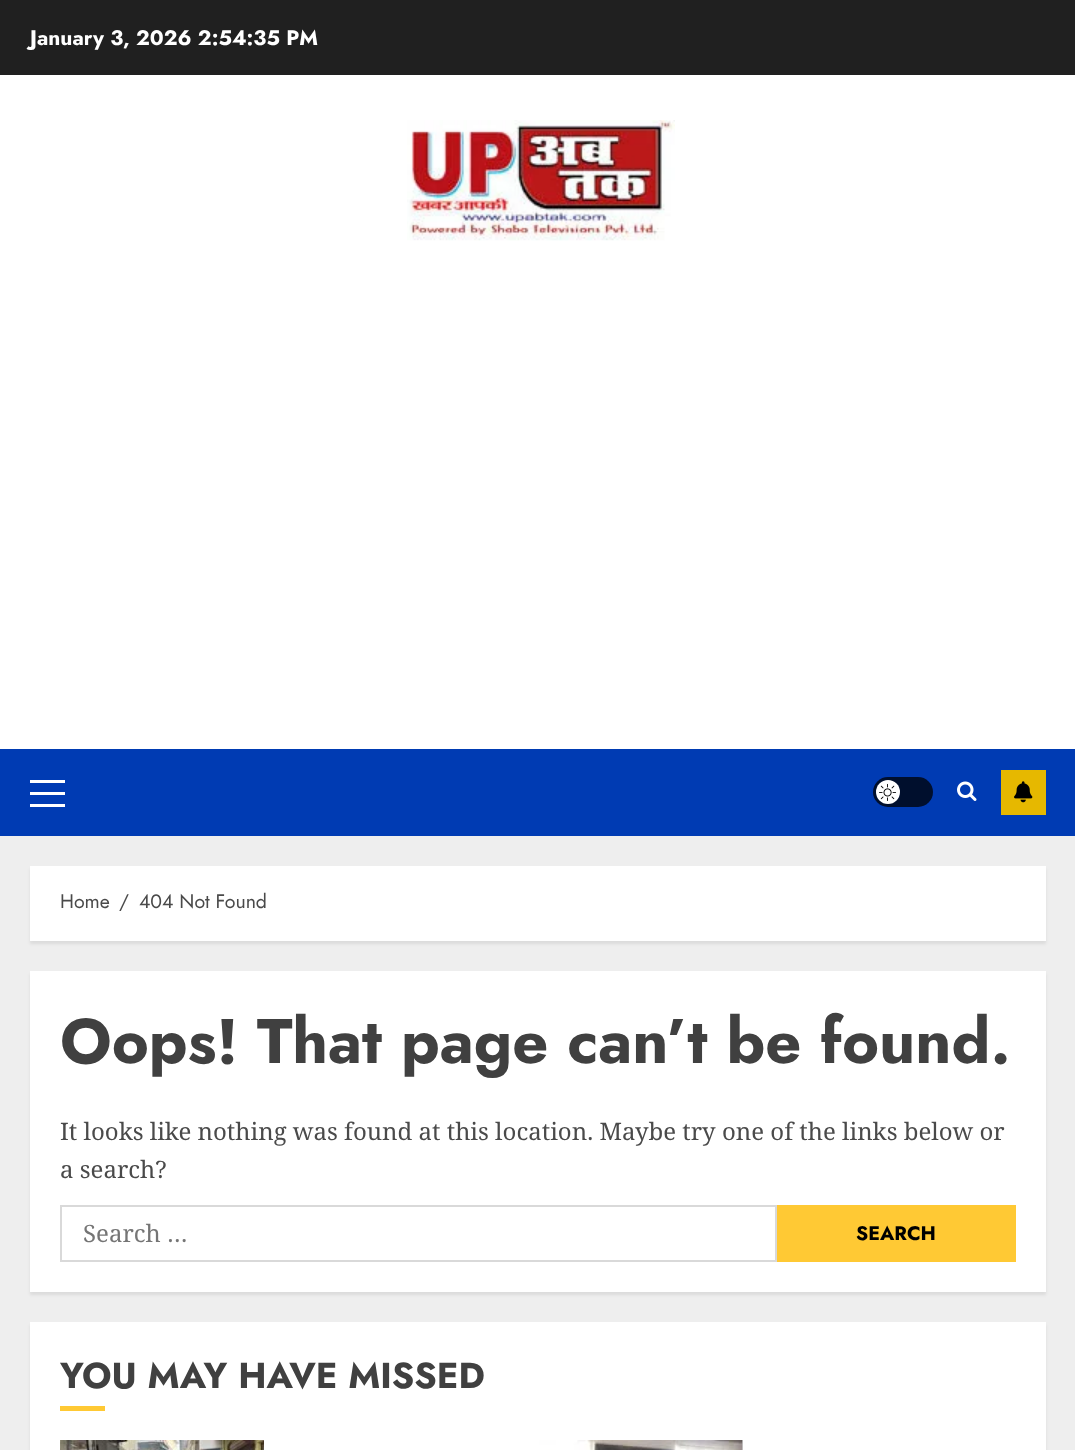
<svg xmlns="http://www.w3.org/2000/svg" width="1075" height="1450">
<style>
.a{font:bold 21px Jost;fill:#fff}
.b{font:19.5px Jost;fill:#4a4a4a}
.c{font:bold 63px Jost;fill:#404040}
.d{font:24px Noto Serif;fill:#4a4a4a}
.e{font:24px Noto Serif;fill:#757575}
.f{font:bold 19.5px Jost;fill:#000}
.g{font:bold 36px Jost;fill:#404040}
</style>
<rect width="100%" height="100%" fill="#eee"/>
<path fill="#202020" d="M0 0h1075v75H0z"/>
<path fill="#fff" d="M0 75h1075v674H0z"/>
<image href="1.png" x="407" y="120" width="268" height="121"/>
<path fill="#003bb3" d="M0 749h1075v87H0z"/>
<path fill="#fff" d="M30 792h35v3H30z"/>
<path fill="#fff" d="M30 780h35v3H30z"/>
<path fill="#fff" d="M30 804h35v3H30z"/>
<rect fill="#000f2d" x="873" y="777" width="60" height="30" rx="15"/>
<circle fill="#fff" cx="888" cy="792" r="12"/>
<image href="2.png" x="879" y="783" width="18" height="18"/>
<image href="3.png" x="957" y="781" width="20" height="20"/>
<path fill="#e6b800" d="M1001 770h45v45H1001z"/>
<image href="4.png" x="1014" y="781" width="19" height="22"/>
<path fill="#00000014" filter="blur(1.5px)" d="M30 869h1016v75H30z"/>
<path fill="#fff" d="M30 866h1016v75H30z"/>
<path fill="#00000014" filter="blur(1.5px)" d="M30 974h1016v321H30z"/>
<path fill="#fff" d="M30 971h1016v321H30z"/>
<path fill="none" stroke="#d9d9d9" stroke-width="2" d="M61 1206h715v55H61z"/>
<path fill="#ffc934" d="M777 1205h239v57H777z"/>
<path fill="#00000014" filter="blur(1.5px)" d="M30 1325h1016v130H30z"/>
<path fill="#fff" d="M30 1322h1016v128H30z"/>
<path fill="#ffc934" d="M60 1406h45v5H60z"/>
<image href="5.png" x="60" y="1440" width="204" height="10"/>
<path fill="#ccc" d="M742 1440h1v10H742z"/>
<image href="6.png" x="539" y="1440" width="204" height="10"/>
<text class="a" x="30" y="45">January 3, 2026 2:54:35 PM</text>
<text class="b" x="60" y="908">Home</text>
<text class="b" x="119" y="908">/</text>
<text class="b" x="139" y="908">404 Not Found</text>
<text class="c" x="60" y="1063">Oops! That page can’t be found.</text>
<text class="d" x="60" y="1140">It looks like nothing was found at this location. Maybe try one of the links below or</text>
<text class="d" x="60" y="1178">a search?</text>
<text class="e" x="83" y="1242">Search …</text>
<text class="f" x="856" y="1240">SEARCH</text>
<text class="g" x="60" y="1388">YOU MAY HAVE MISSED</text>
</svg>
